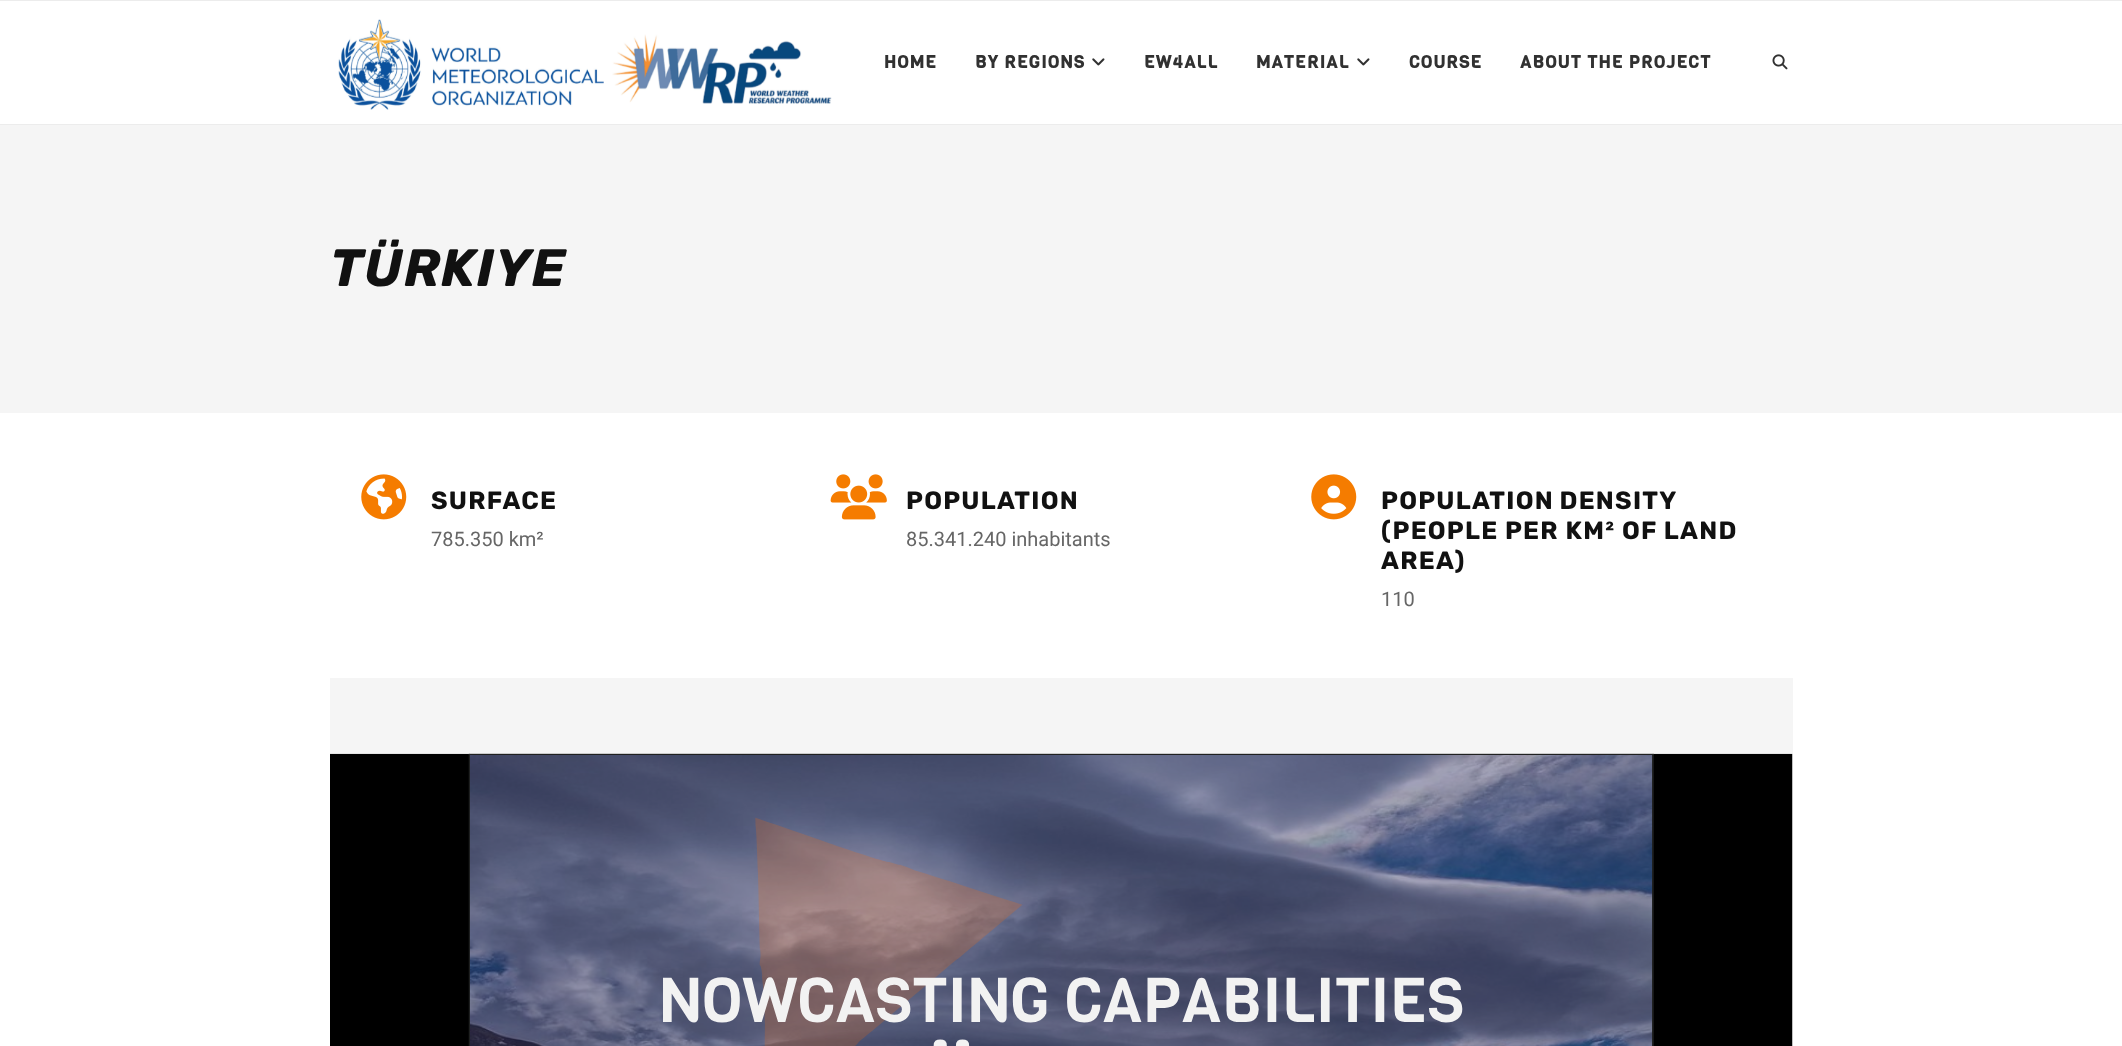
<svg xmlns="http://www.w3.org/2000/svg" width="2122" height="1046">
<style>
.a{font:bold 17.5px Viga;letter-spacing:1.25px;fill:#313131}
.b{font:italic bold 52.5px Rubik;letter-spacing:1.25px;fill:#111}
.c{font:bold 25px Rubik;letter-spacing:1.25px;fill:#111}
.d{font:20px Roboto;fill:#666}
</style>
<rect width="100%" height="100%" fill="#fff"/>
<path fill="#ececec" d="M0 0h2122v1H0z"/>
<path fill="#ececec" d="M0 124h2122v1H0z"/>
<image href="1.png" x="338" y="19" width="494" height="91"/>
<image href="2.png" x="1092" y="58" width="13" height="8"/>
<image href="2.png" x="1357" y="58" width="13" height="8"/>
<image href="3.png" x="1772" y="54" width="16" height="16"/>
<path fill="#f5f5f5" d="M0 125h2122v288H0z"/>
<image href="4.png" x="361" y="474" width="46" height="46"/>
<image href="5.png" x="830" y="474" width="57" height="46"/>
<image href="6.png" x="1311" y="474" width="46" height="46"/>
<path fill="#f5f5f5" d="M330 678h1463v76H330z"/>
<image href="7.png" x="330" y="753" width="1463" height="293"/>
<text class="a" x="884" y="68">HOME</text>
<text class="a" x="975" y="68">BY REGIONS</text>
<text class="a" x="1144" y="68">EW4ALL</text>
<text class="a" x="1256" y="68">MATERIAL</text>
<text class="a" x="1409" y="68">COURSE</text>
<text class="a" x="1520" y="68">ABOUT THE PROJECT</text>
<text class="b" x="330" y="286">TÜRKIYE</text>
<text class="c" x="431" y="509">SURFACE</text>
<text class="d" x="431" y="546">785.350 km²</text>
<text class="c" x="906" y="509">POPULATION</text>
<text class="d" x="906" y="546">85.341.240 inhabitants</text>
<text class="c" x="1381" y="509" word-spacing="-1">POPULATION DENSITY</text>
<text class="c" x="1381" y="539">(PEOPLE PER KM² OF LAND</text>
<text class="c" x="1381" y="569">AREA)</text>
<text class="d" x="1381" y="606">110</text>
</svg>
